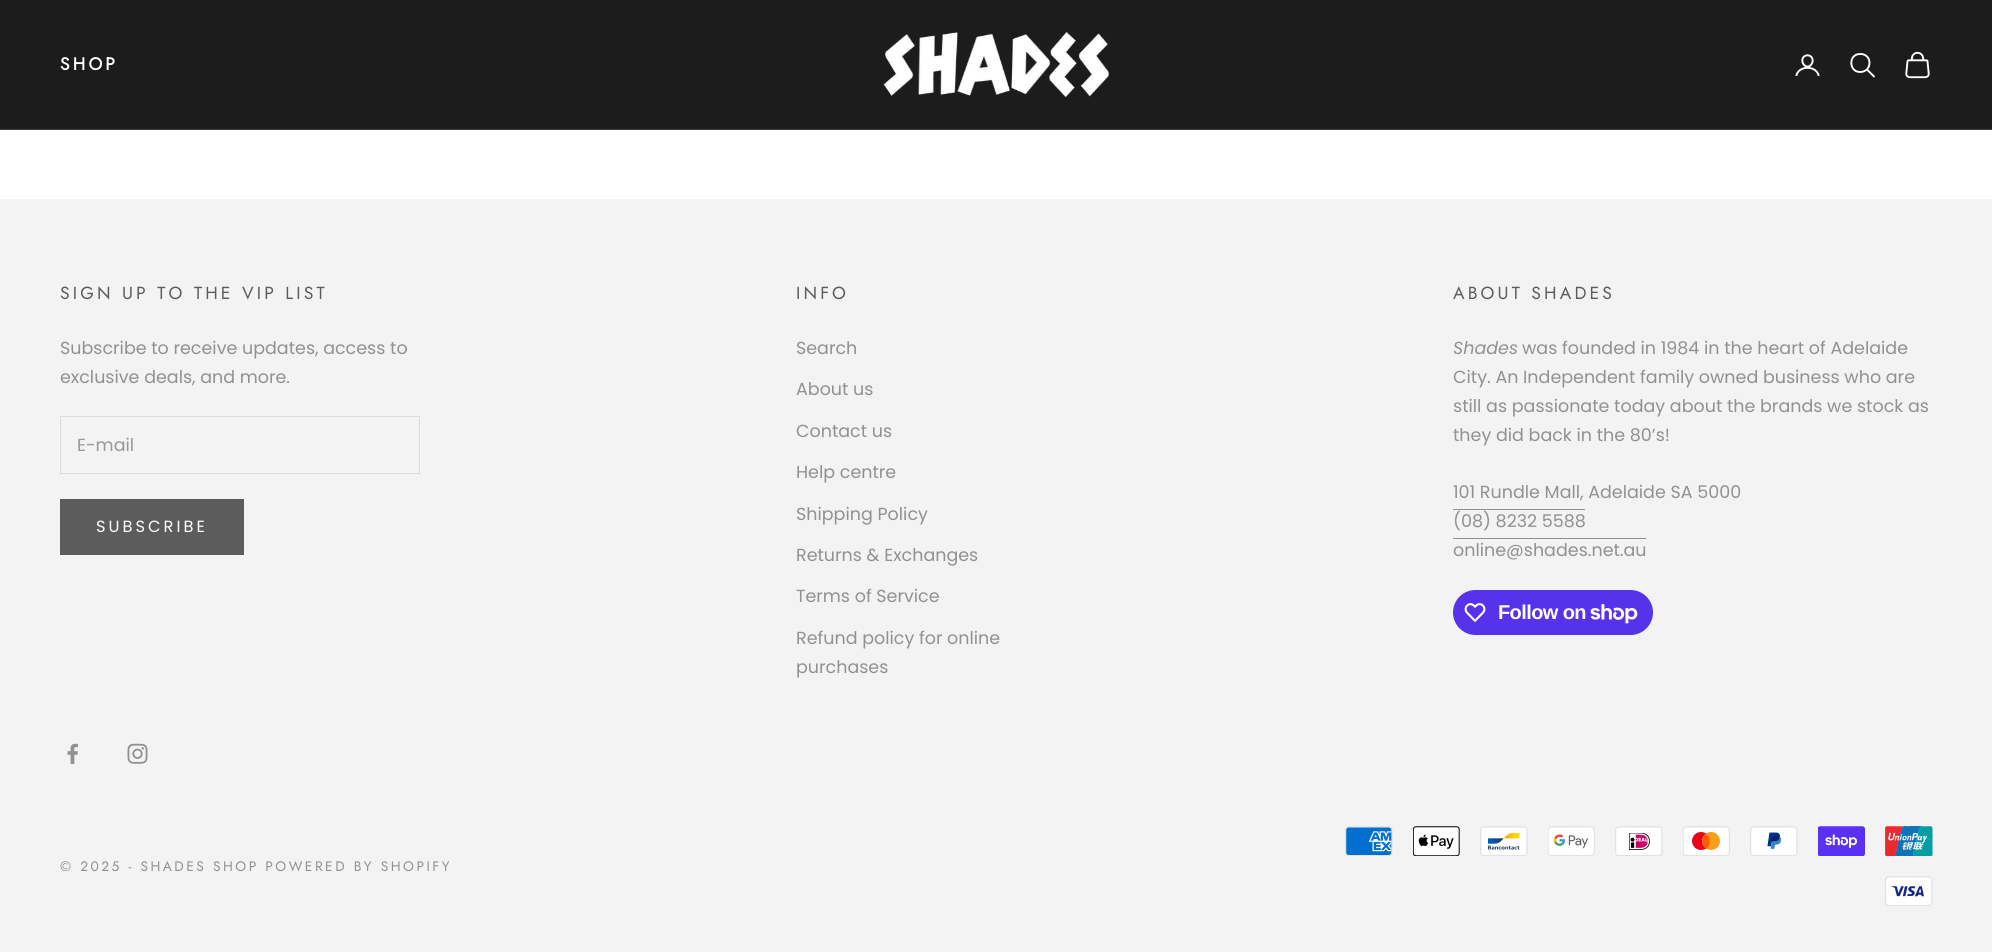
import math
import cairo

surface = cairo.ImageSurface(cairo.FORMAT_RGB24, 1992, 952)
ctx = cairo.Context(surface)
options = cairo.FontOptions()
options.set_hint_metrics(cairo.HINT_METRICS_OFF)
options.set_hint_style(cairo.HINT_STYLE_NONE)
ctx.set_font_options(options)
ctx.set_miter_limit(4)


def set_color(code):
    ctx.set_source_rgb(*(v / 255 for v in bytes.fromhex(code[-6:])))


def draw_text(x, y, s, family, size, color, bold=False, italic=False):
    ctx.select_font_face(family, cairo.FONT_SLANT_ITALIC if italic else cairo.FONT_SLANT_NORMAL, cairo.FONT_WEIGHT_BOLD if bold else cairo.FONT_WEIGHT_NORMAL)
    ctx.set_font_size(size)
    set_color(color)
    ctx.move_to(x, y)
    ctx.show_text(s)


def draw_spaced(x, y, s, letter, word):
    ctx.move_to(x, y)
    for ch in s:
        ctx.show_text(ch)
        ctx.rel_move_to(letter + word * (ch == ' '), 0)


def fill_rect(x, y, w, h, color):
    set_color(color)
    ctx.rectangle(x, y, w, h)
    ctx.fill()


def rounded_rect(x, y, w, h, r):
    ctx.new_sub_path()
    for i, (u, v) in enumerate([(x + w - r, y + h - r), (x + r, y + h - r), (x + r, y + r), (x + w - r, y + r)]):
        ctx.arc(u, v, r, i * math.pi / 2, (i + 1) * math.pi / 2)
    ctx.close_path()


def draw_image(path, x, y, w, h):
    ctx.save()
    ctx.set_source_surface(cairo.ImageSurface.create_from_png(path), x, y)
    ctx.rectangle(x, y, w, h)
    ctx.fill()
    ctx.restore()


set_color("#ffffff")
ctx.paint()
fill_rect(0, 0, 1992, 129, "#1c1c1c")
fill_rect(0, 129, 1992, 1, "#3e3e3e")
ctx.select_font_face("Jost", cairo.FONT_SLANT_NORMAL, cairo.FONT_WEIGHT_BOLD)
ctx.set_font_size(17.5)
set_color("#ffffff")
draw_spaced(60, 70, "SHOP", 3.15, 0)
draw_image("assets/img1.png", 883, 32, 226, 65)
draw_image("assets/img2.png", 1795, 54, 25, 22)
ctx.new_path()
ctx.move_to(1860.5, 54)
ctx.curve_to(1848, 53.5, 1848.5, 72.5, 1860.5, 72)
ctx.curve_to(1872.5, 71.5, 1872.5, 54, 1860.5, 54)
ctx.close_path()
ctx.set_line_width(1.9)
ctx.stroke()
ctx.new_path()
ctx.move_to(1867.5, 70)
ctx.line_to(1874, 76.5)
ctx.set_line_cap(cairo.LINE_CAP_ROUND)
ctx.stroke()
draw_image("assets/img3.png", 1905, 51, 25, 28)
fill_rect(0, 199, 1992, 753, "#f3f3f3")
ctx.select_font_face("Jost")
set_color("#5c5c5c")
draw_spaced(60, 299, "SIGN UP TO THE VIP LIST", 3.15, 0)
draw_text(60, 354, "Subscribe to receive updates, access to", "Poppins", 17.5, "#919191")
draw_text(60, 383, "exclusive deals, and more.", "Poppins", 17.5, "#919191")
ctx.rectangle(60.5, 416.5, 359, 57)
set_color("#dcdcdc")
ctx.set_line_width(1)
ctx.set_line_cap(cairo.LINE_CAP_BUTT)
ctx.stroke()
draw_text(77, 451, "E-mail", "Poppins", 17.5, "#989898")
set_color("#5c5c5c")
ctx.rectangle(60.5, 499.5, 183, 55)
ctx.fill_preserve()
ctx.stroke()
ctx.set_font_size(16.25)
set_color("#ffffff")
draw_spaced(96, 532, "SUBSCRIBE", 3, 0)
ctx.select_font_face("Jost")
ctx.set_font_size(17.5)
set_color("#5c5c5c")
draw_spaced(796, 299, "INFO", 3.15, 0)
draw_text(796, 354, "Search", "Poppins", 17.5, "#919191")
draw_text(796, 395, "About us", "Poppins", 17.5, "#919191")
draw_text(796, 437, "Contact us", "Poppins", 17.5, "#919191")
draw_text(796, 478, "Help centre", "Poppins", 17.5, "#919191")
draw_text(796, 520, "Shipping Policy", "Poppins", 17.5, "#919191")
draw_text(796, 561, "Returns & Exchanges", "Poppins", 17.5, "#919191")
draw_text(796, 602, "Terms of Service", "Poppins", 17.5, "#919191")
draw_text(796, 644, "Refund policy for online", "Poppins", 17.5, "#919191")
draw_text(796, 673, "purchases", "Poppins", 17.5, "#919191")
ctx.select_font_face("Jost")
set_color("#5c5c5c")
draw_spaced(1453, 299, "ABOUT SHADES", 3.15, 0)
draw_text(1453, 354, "Shades", "Poppins", 17.5, "#919191", italic=True)
draw_text(1522, 354, "was founded in 1984 in the heart of Adelaide", "Poppins", 17.5, "#919191")
draw_text(1453, 383, "City. An Independent family owned business who are", "Poppins", 17.5, "#919191")
draw_text(1453, 412, "still as passionate today about the brands we stock as", "Poppins", 17.5, "#919191")
draw_text(1453, 441, "they did back in the 80’s!", "Poppins", 17.5, "#919191")
draw_text(1453, 498, "101 Rundle Mall, Adelaide SA 5000", "Poppins", 17.5, "#919191")
draw_text(1453, 527, "(08) 8232 5588", "Poppins", 17.5, "#919191")
fill_rect(1453, 509, 132, 1, "#919191")
draw_text(1453, 556, "online@shades.net.au", "Poppins", 17.5, "#919191")
fill_rect(1453, 538, 193, 1, "#919191")
set_color("#5433eb")
rounded_rect(1453, 590, 200, 45, 22.5)
ctx.fill()
draw_image("assets/img4.png", 1464, 603, 22, 19)
ctx.select_font_face("Liberation Sans", cairo.FONT_SLANT_NORMAL, cairo.FONT_WEIGHT_BOLD)
ctx.set_font_size(20)
set_color("#ffffff")
draw_spaced(1498, 619, "Follow on", -0.6, 0)
draw_image("assets/img5.png", 1590, 604, 48, 20)
draw_image("assets/img6.png", 67, 743, 11, 21)
draw_image("assets/img7.png", 127, 743, 21, 21)
ctx.select_font_face("Jost")
ctx.set_font_size(13.75)
set_color("#919191")
draw_spaced(60, 871, "© 2025 - SHADES SHOP POWERED BY SHOPIFY", 2.5, 0)
draw_image("assets/img8.png", 1345, 826, 48, 30)
draw_image("assets/img9.png", 1413, 826, 47, 30)
draw_image("assets/img10.png", 1480, 826, 48, 30)
draw_image("assets/img11.png", 1548, 826, 47, 30)
draw_image("assets/img12.png", 1615, 826, 48, 30)
draw_image("assets/img13.png", 1683, 826, 47, 30)
draw_image("assets/img14.png", 1750, 826, 48, 30)
draw_image("assets/img15.png", 1818, 826, 47, 30)
draw_image("assets/img16.png", 1885, 826, 48, 30)
draw_image("assets/img17.png", 1885, 876, 48, 30)
surface.write_to_png("output.png")
